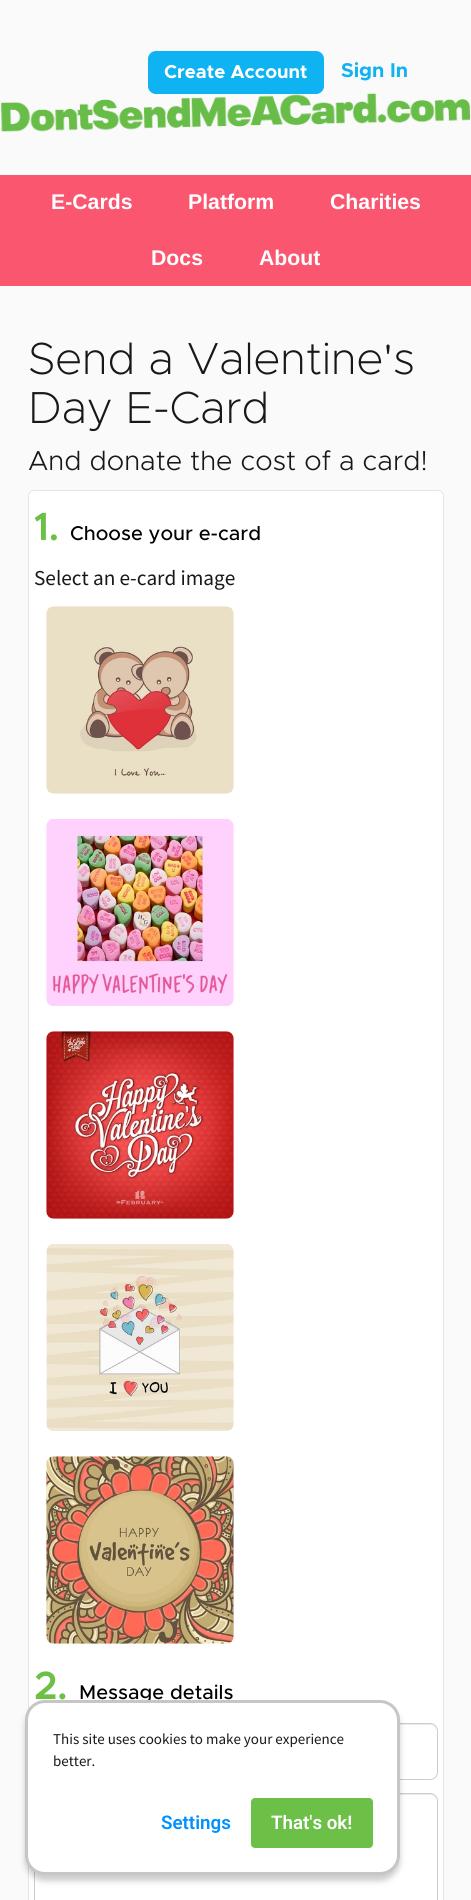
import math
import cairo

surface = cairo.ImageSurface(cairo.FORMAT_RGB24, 471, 1900)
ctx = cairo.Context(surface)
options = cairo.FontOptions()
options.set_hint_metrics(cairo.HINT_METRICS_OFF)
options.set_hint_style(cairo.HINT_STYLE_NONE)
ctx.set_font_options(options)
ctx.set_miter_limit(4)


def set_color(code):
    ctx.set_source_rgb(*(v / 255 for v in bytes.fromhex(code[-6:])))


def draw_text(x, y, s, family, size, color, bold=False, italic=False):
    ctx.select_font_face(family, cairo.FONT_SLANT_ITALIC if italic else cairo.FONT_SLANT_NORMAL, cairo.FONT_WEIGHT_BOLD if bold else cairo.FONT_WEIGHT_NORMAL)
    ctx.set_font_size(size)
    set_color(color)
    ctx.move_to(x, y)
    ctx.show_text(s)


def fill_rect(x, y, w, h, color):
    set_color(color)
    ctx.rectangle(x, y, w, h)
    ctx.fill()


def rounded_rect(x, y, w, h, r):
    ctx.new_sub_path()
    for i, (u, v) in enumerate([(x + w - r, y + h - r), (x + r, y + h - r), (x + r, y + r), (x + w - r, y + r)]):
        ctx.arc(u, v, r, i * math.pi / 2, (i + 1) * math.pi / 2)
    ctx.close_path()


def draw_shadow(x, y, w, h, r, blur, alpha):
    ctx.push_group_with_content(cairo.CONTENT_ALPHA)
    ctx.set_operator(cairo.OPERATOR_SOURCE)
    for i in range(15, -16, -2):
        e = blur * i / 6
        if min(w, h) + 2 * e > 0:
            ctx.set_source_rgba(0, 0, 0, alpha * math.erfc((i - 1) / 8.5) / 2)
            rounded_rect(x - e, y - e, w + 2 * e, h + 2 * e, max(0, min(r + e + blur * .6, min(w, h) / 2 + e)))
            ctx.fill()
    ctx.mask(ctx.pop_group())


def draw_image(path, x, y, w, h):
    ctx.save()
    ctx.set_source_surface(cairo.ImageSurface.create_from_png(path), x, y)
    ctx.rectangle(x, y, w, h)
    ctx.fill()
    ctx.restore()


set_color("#fafafa")
ctx.paint()
set_color("#0fb3f2")
rounded_rect(148.5, 51.5, 175, 42, 7.5)
ctx.fill_preserve()
ctx.set_line_width(1)
ctx.stroke()
draw_text(164, 78, "Create Account", "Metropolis", 18.75, "#ffffff", bold=True)
draw_text(341, 77, "Sign In", "Metropolis", 20, "#0fb3f2", bold=True)
draw_image("assets/img1.png", 1, 93, 469, 39)
fill_rect(0, 175, 471, 111, "#fa5670")
draw_text(51, 209, "E-Cards", "Liberation Sans", 21.25, "#ffffff", bold=True)
draw_text(188, 209, "Platform", "Liberation Sans", 21.25, "#ffffff", bold=True)
draw_text(330, 209, "Charities", "Liberation Sans", 21.25, "#ffffff", bold=True)
draw_text(151, 265, "Docs", "Liberation Sans", 21.25, "#ffffff", bold=True)
draw_text(259, 265, "About", "Liberation Sans", 21.25, "#ffffff", bold=True)
draw_text(28, 374, "Send a Valentine's", "Metropolis ExtraLight", 45, "#181818")
draw_text(28, 423, "Day E-Card", "Metropolis ExtraLight", 45, "#181818")
draw_text(28, 470, "And donate the cost of a card!", "Metropolis Light", 27.5, "#181818")
set_color("#ffffff")
rounded_rect(28.5, 490.5, 415, 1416, 5.5)
ctx.fill_preserve()
set_color("#e5e5e5")
ctx.stroke()
draw_text(34, 540, "1.", "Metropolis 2", 38, "#6cc047", bold=True)
draw_text(70, 540, "Choose your e-card", "Metropolis Medium", 20, "#000000")
draw_text(34, 585, "Select an e-card image", "Source Sans Pro", 21.25, "#181818")
draw_image("assets/img2.png", 46, 606, 188, 188)
draw_image("assets/img3.png", 46, 819, 188, 187)
draw_image("assets/img4.png", 46, 1031, 188, 188)
draw_image("assets/img5.png", 46, 1244, 188, 187)
draw_image("assets/img6.png", 46, 1456, 188, 188)
draw_text(34, 1699, "2.", "Metropolis 2", 38, "#6cc047", bold=True)
draw_text(79, 1699, "Message details", "Metropolis Medium", 20, "#000000")
set_color("#ececec")
ctx.new_path()
ctx.move_to(41, 1725)
ctx.line_to(430, 1725)
ctx.curve_to(433, 1725, 436, 1728, 436, 1731)
ctx.line_to(436, 1730)
ctx.curve_to(436, 1727, 433, 1724, 430, 1724)
ctx.line_to(41, 1724)
ctx.curve_to(38, 1724, 35, 1727, 35, 1730)
ctx.line_to(35, 1731)
ctx.curve_to(35, 1728, 38, 1725, 41, 1725)
ctx.close_path()
ctx.fill()
rounded_rect(34.5, 1723.5, 403, 56, 7.5)
set_color("#cccccc")
ctx.stroke()
set_color("#ececec")
ctx.new_path()
ctx.move_to(41, 1795)
ctx.line_to(430, 1795)
ctx.curve_to(433, 1795, 436, 1798, 436, 1801)
ctx.line_to(436, 1800)
ctx.curve_to(436, 1797, 433, 1794, 430, 1794)
ctx.line_to(41, 1794)
ctx.curve_to(38, 1794, 35, 1797, 35, 1800)
ctx.line_to(35, 1801)
ctx.curve_to(35, 1798, 38, 1795, 41, 1795)
ctx.close_path()
ctx.fill()
rounded_rect(34.5, 1793.5, 403, 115, 7.5)
set_color("#cccccc")
ctx.stroke()
set_color("#000000")
draw_shadow(25, 1706, 375, 175, 20, 3, 0.2)
set_color("#ffffff")
rounded_rect(26.5, 1701.5, 372, 172, 18.5)
ctx.fill_preserve()
set_color("#c6c6c6")
ctx.set_line_width(3)
ctx.stroke()
draw_text(53, 1744, "This site uses cookies to make your experience", "Source Sans Pro", 15, "#181818")
draw_text(53, 1766, "better.", "Source Sans Pro", 15, "#181818")
draw_text(161, 1829, "Settings", "Roboto SemiBold", 18.75, "#0091ff")
set_color("#6cc047")
rounded_rect(251, 1798, 122, 50, 4)
ctx.fill()
draw_text(271, 1829, "That's ok!", "Roboto SemiBold", 18.75, "#ffffff")
surface.write_to_png("output.png")
